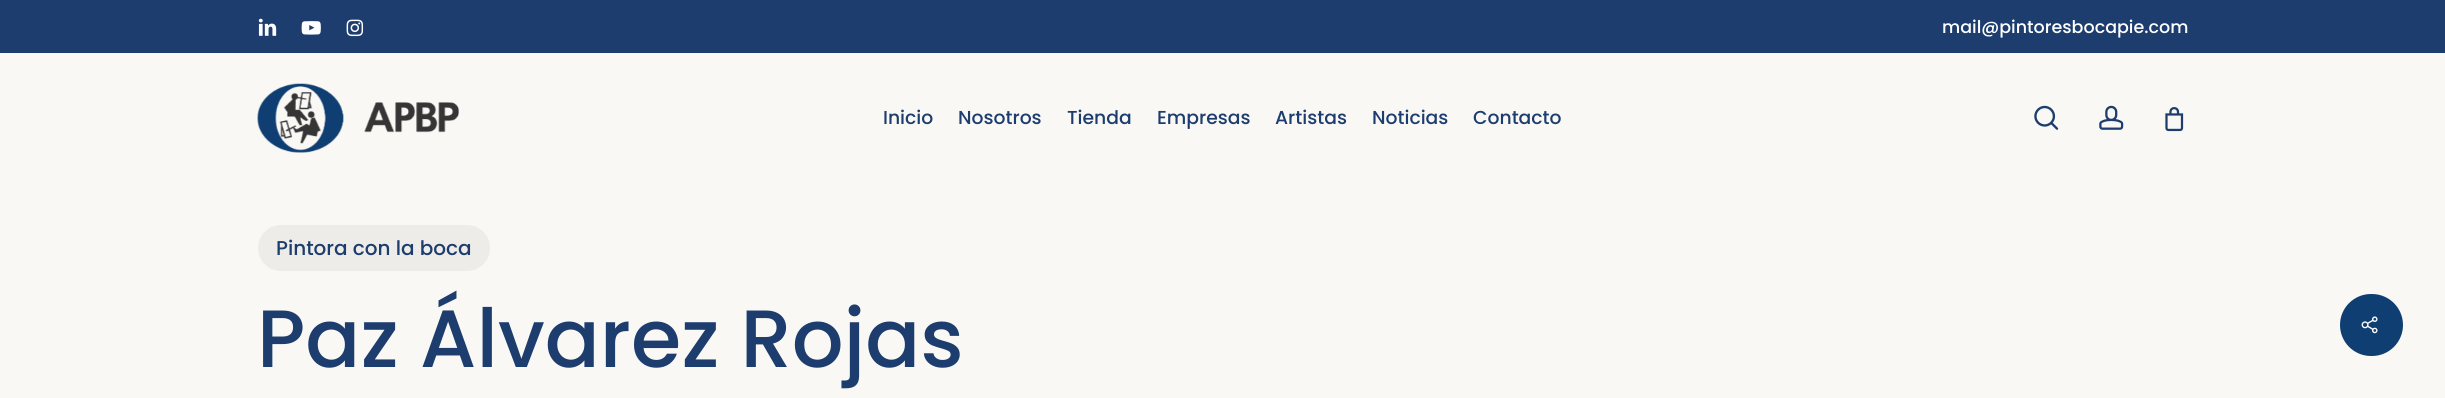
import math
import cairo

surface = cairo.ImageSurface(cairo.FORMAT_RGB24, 2445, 398)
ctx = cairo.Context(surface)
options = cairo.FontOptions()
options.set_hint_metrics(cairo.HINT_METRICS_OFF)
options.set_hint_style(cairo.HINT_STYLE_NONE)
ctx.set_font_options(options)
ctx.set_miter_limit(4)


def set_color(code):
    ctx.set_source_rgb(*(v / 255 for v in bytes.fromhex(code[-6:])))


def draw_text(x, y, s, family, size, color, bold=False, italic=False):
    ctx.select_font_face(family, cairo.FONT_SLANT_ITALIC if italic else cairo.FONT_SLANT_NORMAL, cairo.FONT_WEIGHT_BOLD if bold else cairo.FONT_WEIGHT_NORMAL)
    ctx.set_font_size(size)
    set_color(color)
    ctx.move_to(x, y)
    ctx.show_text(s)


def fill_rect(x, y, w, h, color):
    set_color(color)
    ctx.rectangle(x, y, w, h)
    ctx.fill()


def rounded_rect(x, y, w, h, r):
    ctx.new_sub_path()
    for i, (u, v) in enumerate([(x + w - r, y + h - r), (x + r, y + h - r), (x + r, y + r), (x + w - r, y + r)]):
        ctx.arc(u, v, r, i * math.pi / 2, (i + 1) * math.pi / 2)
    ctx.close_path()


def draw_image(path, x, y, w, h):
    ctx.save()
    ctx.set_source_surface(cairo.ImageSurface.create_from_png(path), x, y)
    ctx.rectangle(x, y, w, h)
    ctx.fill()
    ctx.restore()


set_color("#faf8f4")
ctx.paint()
fill_rect(0, 0, 2445, 53, "#1c3d6e")
draw_image("assets/img1.png", 258, 18, 19, 18)
draw_image("assets/img2.png", 301, 21, 20, 14)
draw_image("assets/img3.png", 346, 19, 18, 18)
draw_text(1942, 33, "mail@pintoresbocapie.com", "Poppins Medium", 17.5, "#ffffff")
draw_image("assets/img4.png", 257, 83, 202, 70)
draw_text(883, 124, "Inicio", "Poppins Medium", 18.75, "#1c3d6e")
draw_text(958, 124, "Nosotros", "Poppins Medium", 18.75, "#1c3d6e")
draw_text(1067, 124, "Tienda", "Poppins Medium", 18.75, "#1c3d6e")
draw_text(1157, 124, "Empresas", "Poppins Medium", 18.75, "#1c3d6e")
draw_text(1275, 124, "Artistas", "Poppins Medium", 18.75, "#1c3d6e")
draw_text(1372, 124, "Noticias", "Poppins Medium", 18.75, "#1c3d6e")
draw_text(1473, 124, "Contacto", "Poppins Medium", 18.75, "#1c3d6e")
draw_image("assets/img5.png", 2034, 105, 25, 25)
draw_image("assets/img6.png", 2099, 105, 25, 25)
draw_image("assets/img7.png", 2165, 107, 19, 25)
set_color("#eeece8")
rounded_rect(258, 225, 232, 46, 23)
ctx.fill()
draw_text(276, 255, "Pintora con la boca", "Poppins Medium", 20, "#1c3d6e")
draw_text(257, 367, "Paz Álvarez Rojas", "Poppins Medium", 81.25, "#1c3d6e")
set_color("#0e3e72")
rounded_rect(2340, 294, 63, 62, 31)
ctx.fill()
draw_image("assets/img8.png", 2361, 316, 17, 18)
surface.write_to_png("output.png")
